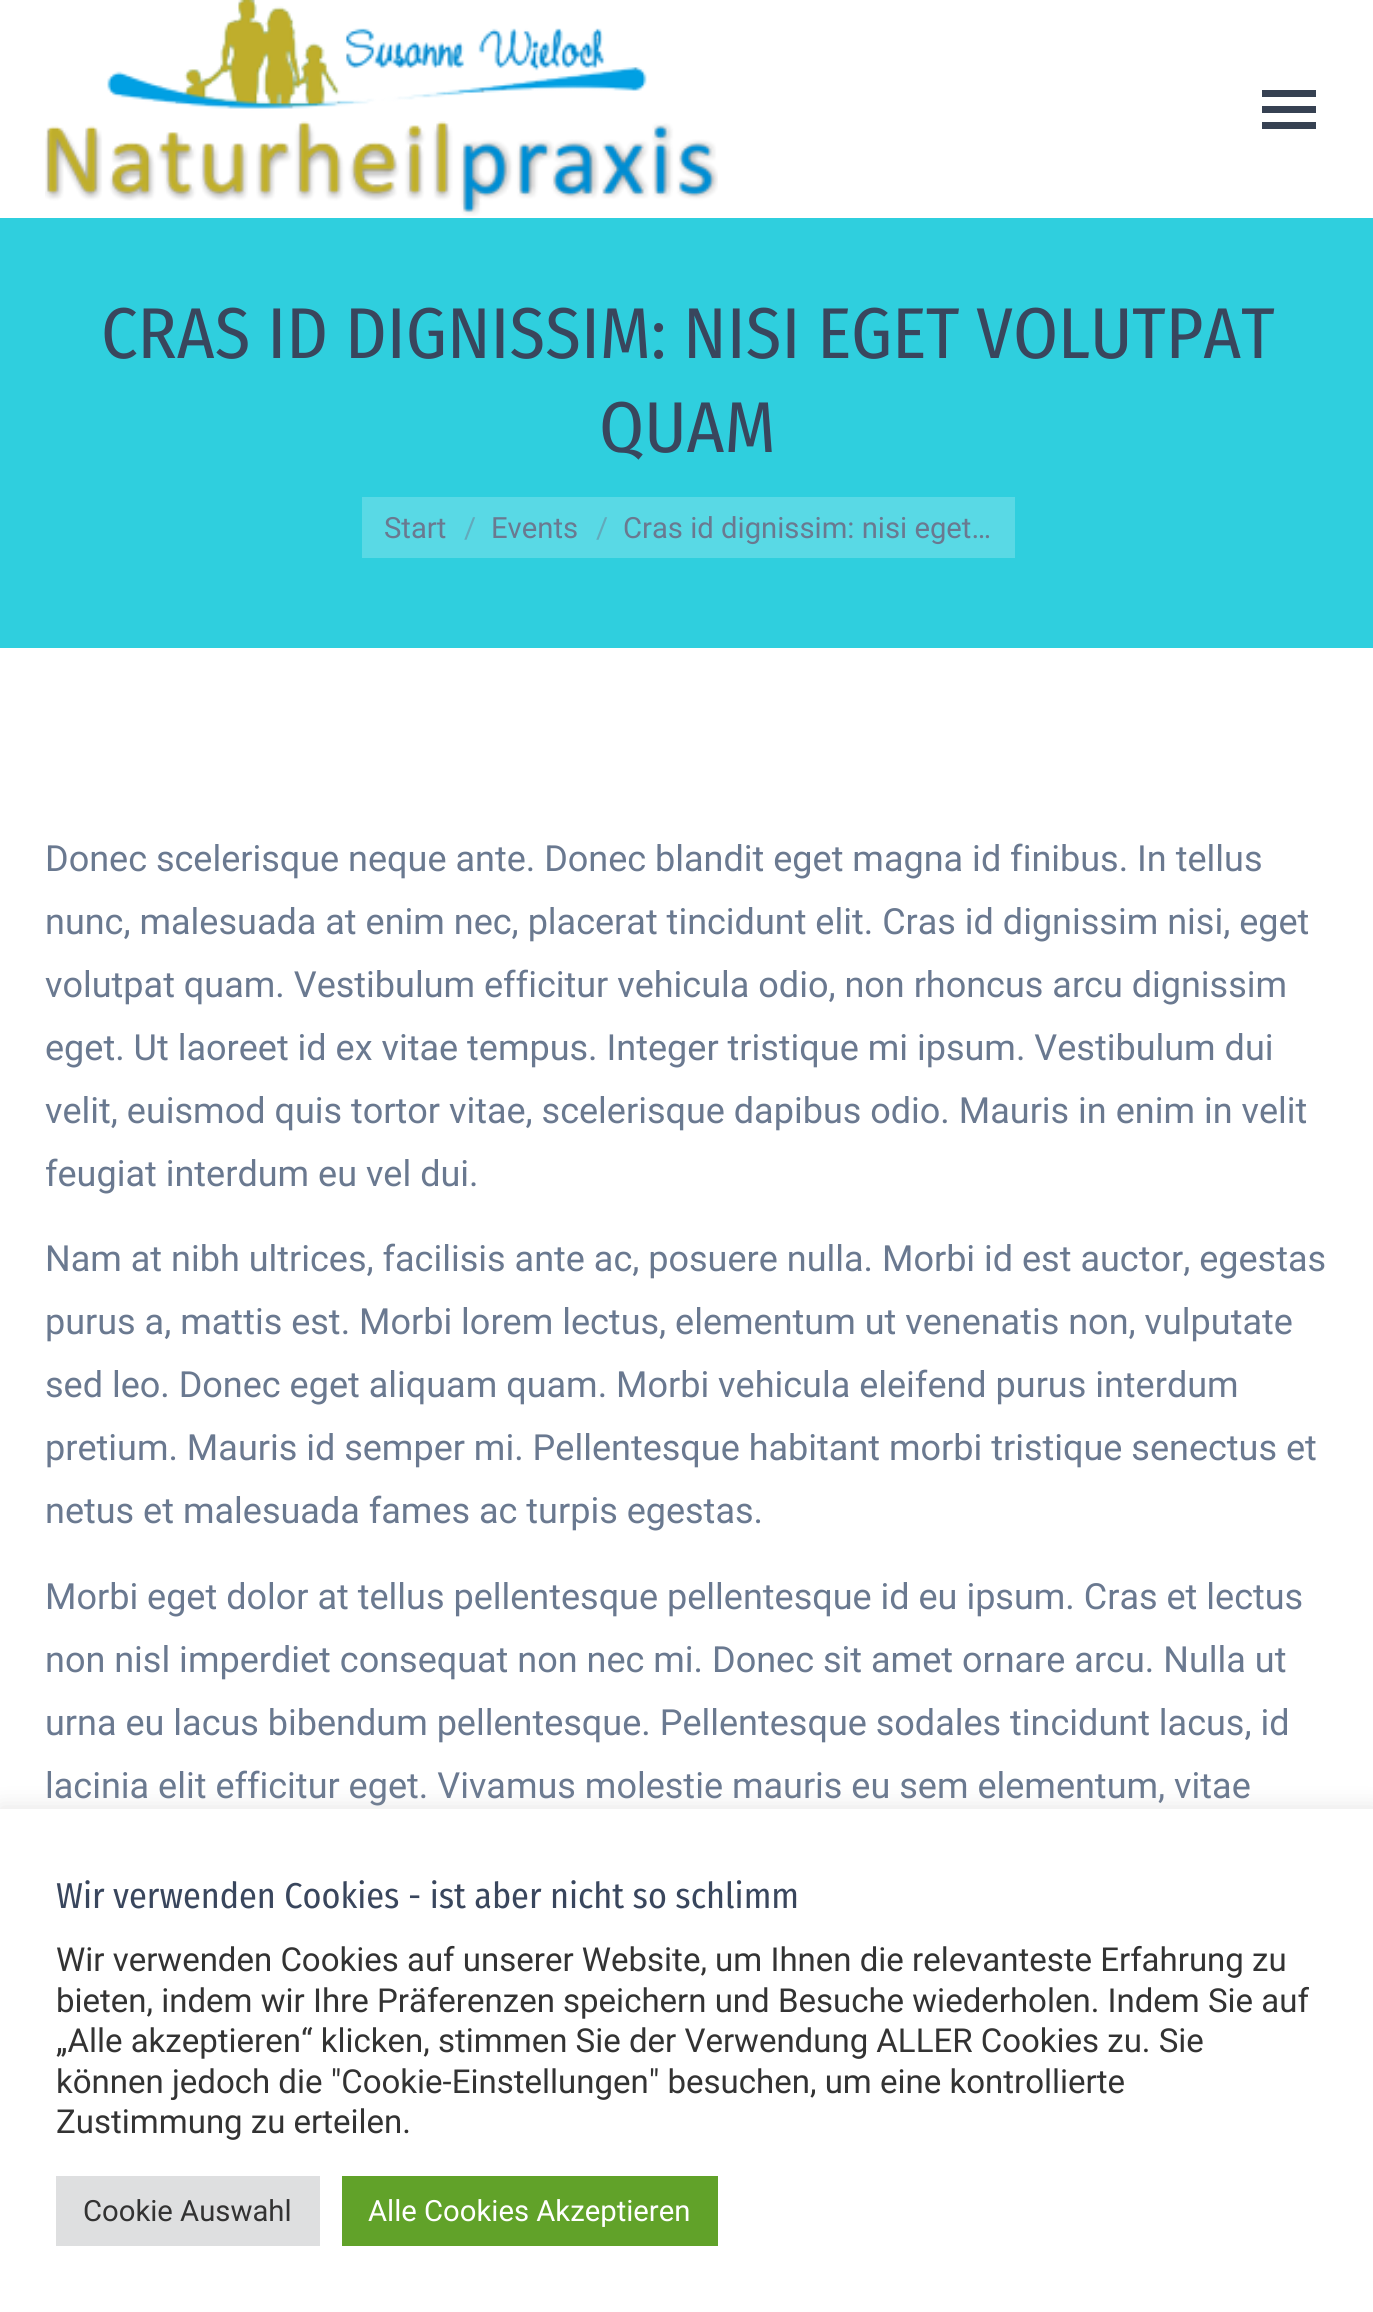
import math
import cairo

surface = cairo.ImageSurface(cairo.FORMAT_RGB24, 1373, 2312)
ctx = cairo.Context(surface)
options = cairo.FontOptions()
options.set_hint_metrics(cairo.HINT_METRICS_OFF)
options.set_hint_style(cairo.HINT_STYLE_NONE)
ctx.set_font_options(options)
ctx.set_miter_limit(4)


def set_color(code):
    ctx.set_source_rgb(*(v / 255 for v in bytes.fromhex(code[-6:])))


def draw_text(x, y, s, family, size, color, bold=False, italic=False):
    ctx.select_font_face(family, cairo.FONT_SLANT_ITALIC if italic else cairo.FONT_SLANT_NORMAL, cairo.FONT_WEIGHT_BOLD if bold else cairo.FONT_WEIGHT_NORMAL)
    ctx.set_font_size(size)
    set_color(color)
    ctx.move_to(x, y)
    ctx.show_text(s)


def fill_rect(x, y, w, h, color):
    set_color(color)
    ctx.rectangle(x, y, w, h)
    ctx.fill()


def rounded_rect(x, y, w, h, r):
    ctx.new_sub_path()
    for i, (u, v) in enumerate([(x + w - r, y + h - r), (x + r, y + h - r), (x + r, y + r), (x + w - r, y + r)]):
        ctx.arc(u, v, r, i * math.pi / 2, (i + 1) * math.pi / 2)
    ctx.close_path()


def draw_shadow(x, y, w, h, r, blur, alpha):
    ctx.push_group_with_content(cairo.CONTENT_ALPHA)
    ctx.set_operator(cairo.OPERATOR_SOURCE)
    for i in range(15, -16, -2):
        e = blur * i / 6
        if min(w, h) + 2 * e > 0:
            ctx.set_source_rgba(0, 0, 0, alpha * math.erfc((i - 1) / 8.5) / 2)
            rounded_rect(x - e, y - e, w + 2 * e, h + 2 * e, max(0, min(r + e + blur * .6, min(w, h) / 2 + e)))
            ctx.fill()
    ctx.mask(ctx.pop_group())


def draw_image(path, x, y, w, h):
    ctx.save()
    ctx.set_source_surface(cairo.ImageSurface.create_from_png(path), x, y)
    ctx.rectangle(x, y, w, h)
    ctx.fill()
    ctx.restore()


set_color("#ffffff")
ctx.paint()
draw_image("assets/img1.png", 45, 0, 673, 216)
fill_rect(1262, 90, 54, 7, "#364152")
fill_rect(1262, 106, 54, 7, "#364152")
fill_rect(1262, 122, 54, 7, "#364152")
fill_rect(0, 218, 1373, 430, "#2fcfde")
draw_text(101, 358, "CRAS ID DIGNISSIM: NISI EGET VOLUTPAT", "Fira Sans Condensed", 72, "#39465d")
draw_text(599, 452, "QUAM", "Fira Sans Condensed", 72, "#39465d")
fill_rect(362, 497, 653, 61, "#59d9e5")
draw_text(384, 538, "Start", "Roboto", 29.25, "#6a7990")
draw_text(464, 538, "/", "Roboto", 29.25, "#62a9bb")
draw_text(491, 538, "Events", "Roboto", 29.25, "#6a7990")
draw_text(596, 538, "/", "Roboto", 29.25, "#62a9bb")
draw_text(623, 538, "Cras id dignissim: nisi eget…", "Roboto", 29.25, "#6a7990")
draw_text(45, 871, "Donec scelerisque neque ante. Donec blandit eget magna id finibus. In tellus", "Roboto", 36, "#6a7990")
draw_text(45, 934, "nunc, malesuada at enim nec, placerat tincidunt elit. Cras id dignissim nisi, eget", "Roboto", 36, "#6a7990")
draw_text(45, 997, "volutpat quam. Vestibulum efficitur vehicula odio, non rhoncus arcu dignissim", "Roboto", 36, "#6a7990")
draw_text(45, 1060, "eget. Ut laoreet id ex vitae tempus. Integer tristique mi ipsum. Vestibulum dui", "Roboto", 36, "#6a7990")
draw_text(45, 1123, "velit, euismod quis tortor vitae, scelerisque dapibus odio. Mauris in enim in velit", "Roboto", 36, "#6a7990")
draw_text(45, 1186, "feugiat interdum eu vel dui.", "Roboto", 36, "#6a7990")
draw_text(45, 1271, "Nam at nibh ultrices, facilisis ante ac, posuere nulla. Morbi id est auctor, egestas", "Roboto", 36, "#6a7990")
draw_text(45, 1334, "purus a, mattis est. Morbi lorem lectus, elementum ut venenatis non, vulputate", "Roboto", 36, "#6a7990")
draw_text(45, 1397, "sed leo. Donec eget aliquam quam. Morbi vehicula eleifend purus interdum", "Roboto", 36, "#6a7990")
draw_text(45, 1460, "pretium. Mauris id semper mi. Pellentesque habitant morbi tristique senectus et", "Roboto", 36, "#6a7990")
draw_text(45, 1523, "netus et malesuada fames ac turpis egestas.", "Roboto", 36, "#6a7990")
draw_text(45, 1609, "Morbi eget dolor at tellus pellentesque pellentesque id eu ipsum. Cras et lectus", "Roboto", 36, "#6a7990")
draw_text(45, 1672, "non nisl imperdiet consequat non nec mi. Donec sit amet ornare arcu. Nulla ut", "Roboto", 36, "#6a7990")
draw_text(45, 1735, "urna eu lacus bibendum pellentesque. Pellentesque sodales tincidunt lacus, id", "Roboto", 36, "#6a7990")
draw_text(45, 1798, "lacinia elit efficitur eget. Vivamus molestie mauris eu sem elementum, vitae", "Roboto", 36, "#6a7990")
set_color("#acabab")
draw_shadow(0, 1807, 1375, 504, 0, 11, 0.3)
fill_rect(0, 1809, 1373, 503, "#ffffff")
draw_text(56, 1908, "Wir verwenden Cookies - ist aber nicht so schlimm", "Fira Sans Condensed", 36, "#39465d")
draw_text(56, 1971, "Wir verwenden Cookies auf unserer Website, um Ihnen die relevanteste Erfahrung zu", "Roboto", 33, "#333333")
draw_text(56, 2012, "bieten, indem wir Ihre Präferenzen speichern und Besuche wiederholen. Indem Sie auf", "Roboto", 33, "#333333")
draw_text(56, 2052, "„Alle akzeptieren“ klicken, stimmen Sie der Verwendung ALLER Cookies zu. Sie", "Roboto", 33, "#333333")
draw_text(56, 2093, "können jedoch die \"Cookie-Einstellungen\" besuchen, um eine kontrollierte", "Roboto", 33, "#333333")
draw_text(56, 2133, "Zustimmung zu erteilen.", "Roboto", 33, "#333333")
fill_rect(56, 2176, 264, 70, "#dedfe0")
draw_text(83, 2221, "Cookie Auswahl", "Roboto", 29.25, "#333333")
fill_rect(342, 2176, 376, 70, "#61a229")
draw_text(368, 2221, "Alle Cookies Akzeptieren", "Roboto", 29.25, "#ffffff")
surface.write_to_png("output.png")
